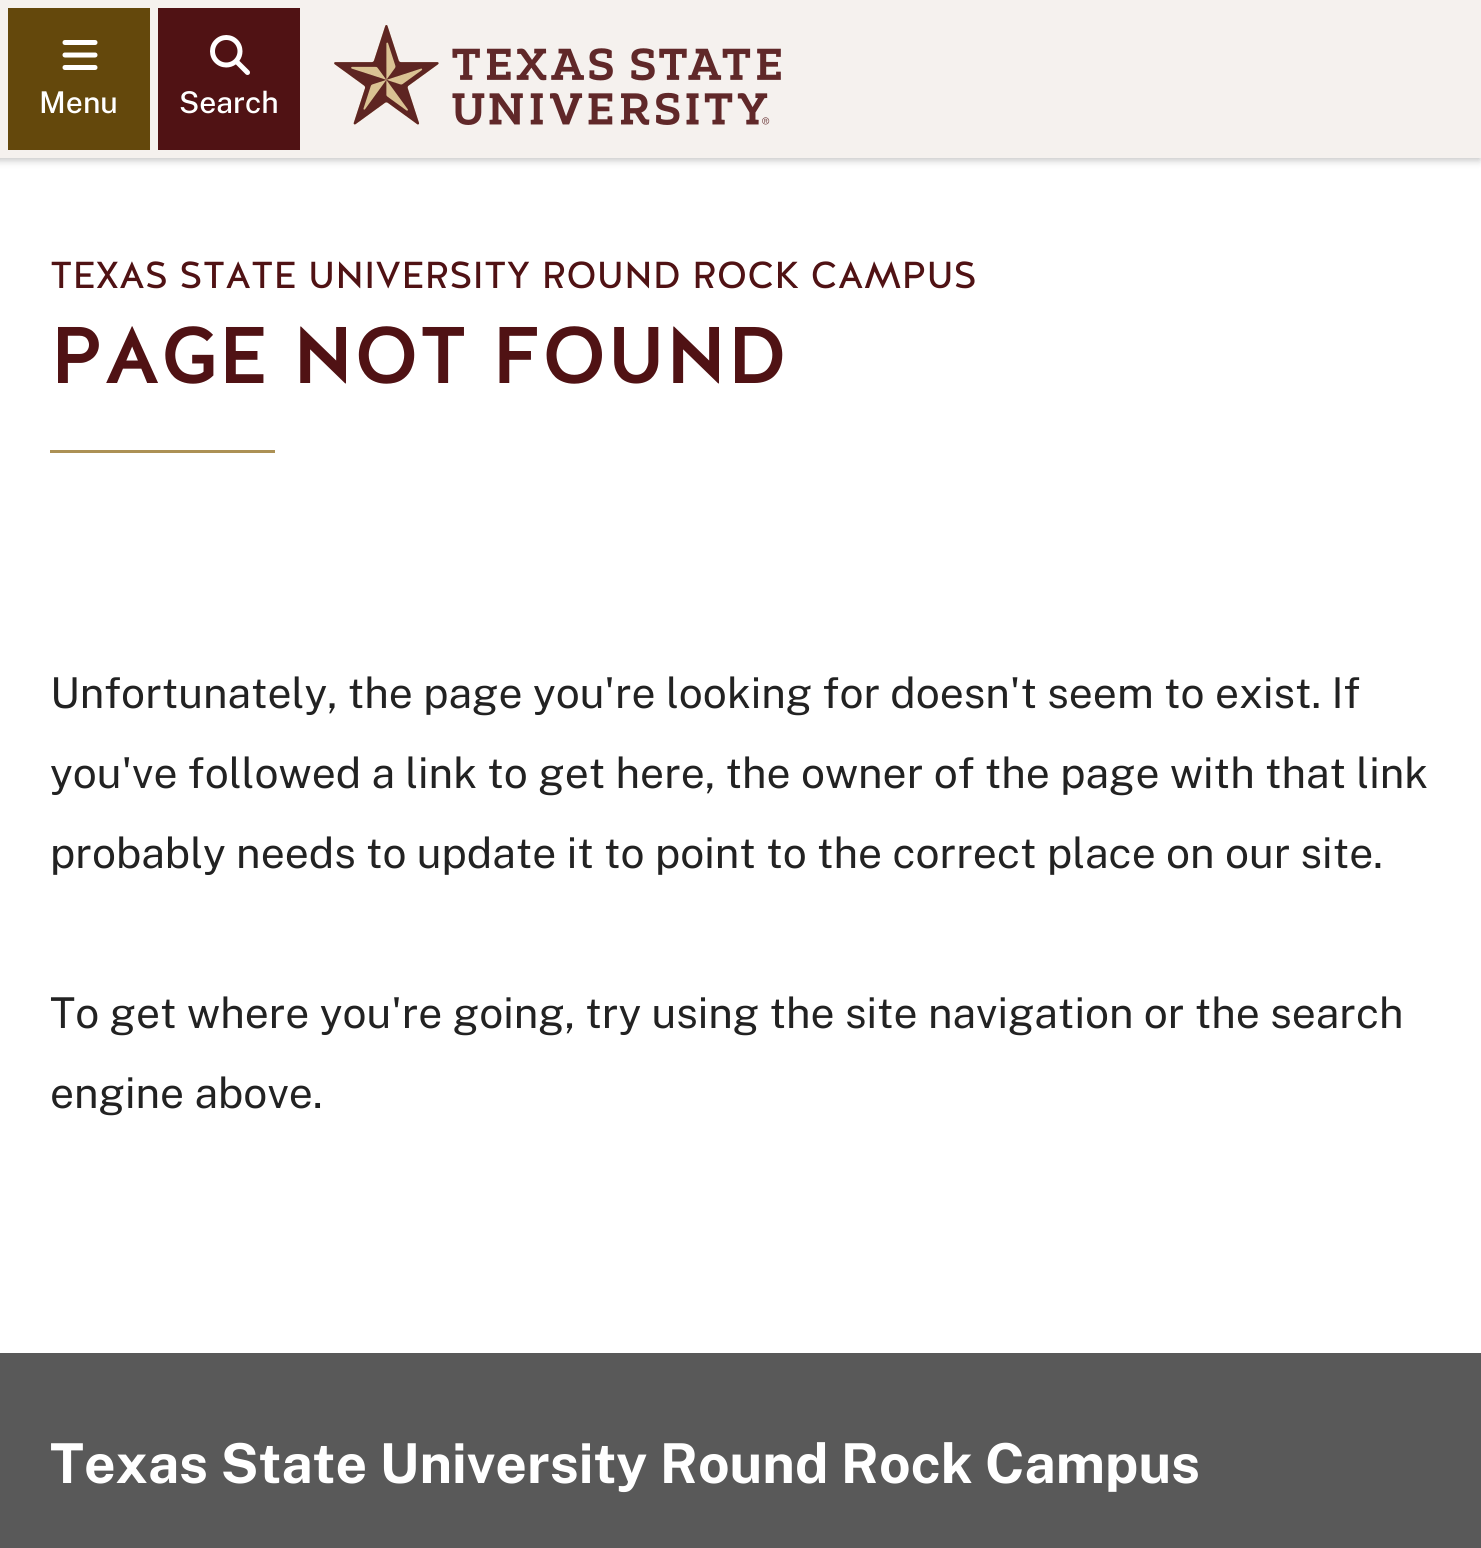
import math
import cairo

surface = cairo.ImageSurface(cairo.FORMAT_RGB24, 1481, 1548)
ctx = cairo.Context(surface)
options = cairo.FontOptions()
options.set_hint_metrics(cairo.HINT_METRICS_OFF)
options.set_hint_style(cairo.HINT_STYLE_NONE)
ctx.set_font_options(options)
ctx.set_miter_limit(4)


def set_color(code):
    ctx.set_source_rgb(*(v / 255 for v in bytes.fromhex(code[-6:])))


def draw_text(x, y, s, family, size, color, bold=False, italic=False):
    ctx.select_font_face(family, cairo.FONT_SLANT_ITALIC if italic else cairo.FONT_SLANT_NORMAL, cairo.FONT_WEIGHT_BOLD if bold else cairo.FONT_WEIGHT_NORMAL)
    ctx.set_font_size(size)
    set_color(color)
    ctx.move_to(x, y)
    ctx.show_text(s)


def fill_rect(x, y, w, h, color):
    set_color(color)
    ctx.rectangle(x, y, w, h)
    ctx.fill()


def rounded_rect(x, y, w, h, r):
    ctx.new_sub_path()
    for i, (u, v) in enumerate([(x + w - r, y + h - r), (x + r, y + h - r), (x + r, y + r), (x + w - r, y + r)]):
        ctx.arc(u, v, r, i * math.pi / 2, (i + 1) * math.pi / 2)
    ctx.close_path()


def draw_shadow(x, y, w, h, r, blur, alpha):
    ctx.push_group_with_content(cairo.CONTENT_ALPHA)
    ctx.set_operator(cairo.OPERATOR_SOURCE)
    for i in range(15, -16, -2):
        e = blur * i / 6
        if min(w, h) + 2 * e > 0:
            ctx.set_source_rgba(0, 0, 0, alpha * math.erfc((i - 1) / 8.5) / 2)
            rounded_rect(x - e, y - e, w + 2 * e, h + 2 * e, max(0, min(r + e + blur * .6, min(w, h) / 2 + e)))
            ctx.fill()
    ctx.mask(ctx.pop_group())


def draw_image(path, x, y, w, h):
    ctx.save()
    ctx.set_source_surface(cairo.ImageSurface.create_from_png(path), x, y)
    ctx.rectangle(x, y, w, h)
    ctx.fill()
    ctx.restore()


set_color("#ffffff")
ctx.paint()
set_color("#000000")
draw_shadow(-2, 3, 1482, 157, 0, 4, 0.25)
fill_rect(0, 0, 1481, 158, "#f5f1ee")
fill_rect(8, 8, 142, 142, "#64480c")
draw_image("assets/img1.png", 62, 40, 36, 30)
draw_text(39, 113, "Menu", "Public Sans Medium", 30, "#ffffff")
fill_rect(158, 8, 142, 142, "#501214")
draw_image("assets/img2.png", 210, 35, 40, 40)
draw_text(179, 113, "Search", "Public Sans Medium", 30, "#ffffff")
draw_image("assets/img3.png", 334, 25, 447, 100)
draw_text(50, 288, "TEXAS STATE UNIVERSITY ROUND ROCK CAMPUS", "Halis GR", 37.5, "#501214")
draw_text(50, 383, "PAGE NOT FOUND", "Halis GR Medium", 80, "#501214")
fill_rect(50, 450, 225, 3, "#ac9155")
draw_text(50, 708, "Unfortunately, the page you're looking for doesn't seem to exist. If", "Public Sans", 42.5, "#222222")
draw_text(50, 788, "you've followed a link to get here, the owner of the page with that link", "Public Sans", 42.5, "#222222")
draw_text(50, 868, "probably needs to update it to point to the correct place on our site.", "Public Sans", 42.5, "#222222")
draw_text(50, 1028, "To get where you're going, try using the site navigation or the search", "Public Sans", 42.5, "#222222")
draw_text(50, 1108, "engine above.", "Public Sans", 42.5, "#222222")
fill_rect(0, 1353, 1481, 195, "#595959")
draw_text(50, 1483, "Texas State University Round Rock Campus", "Public Sans", 55, "#ffffff", bold=True)
surface.write_to_png("output.png")
